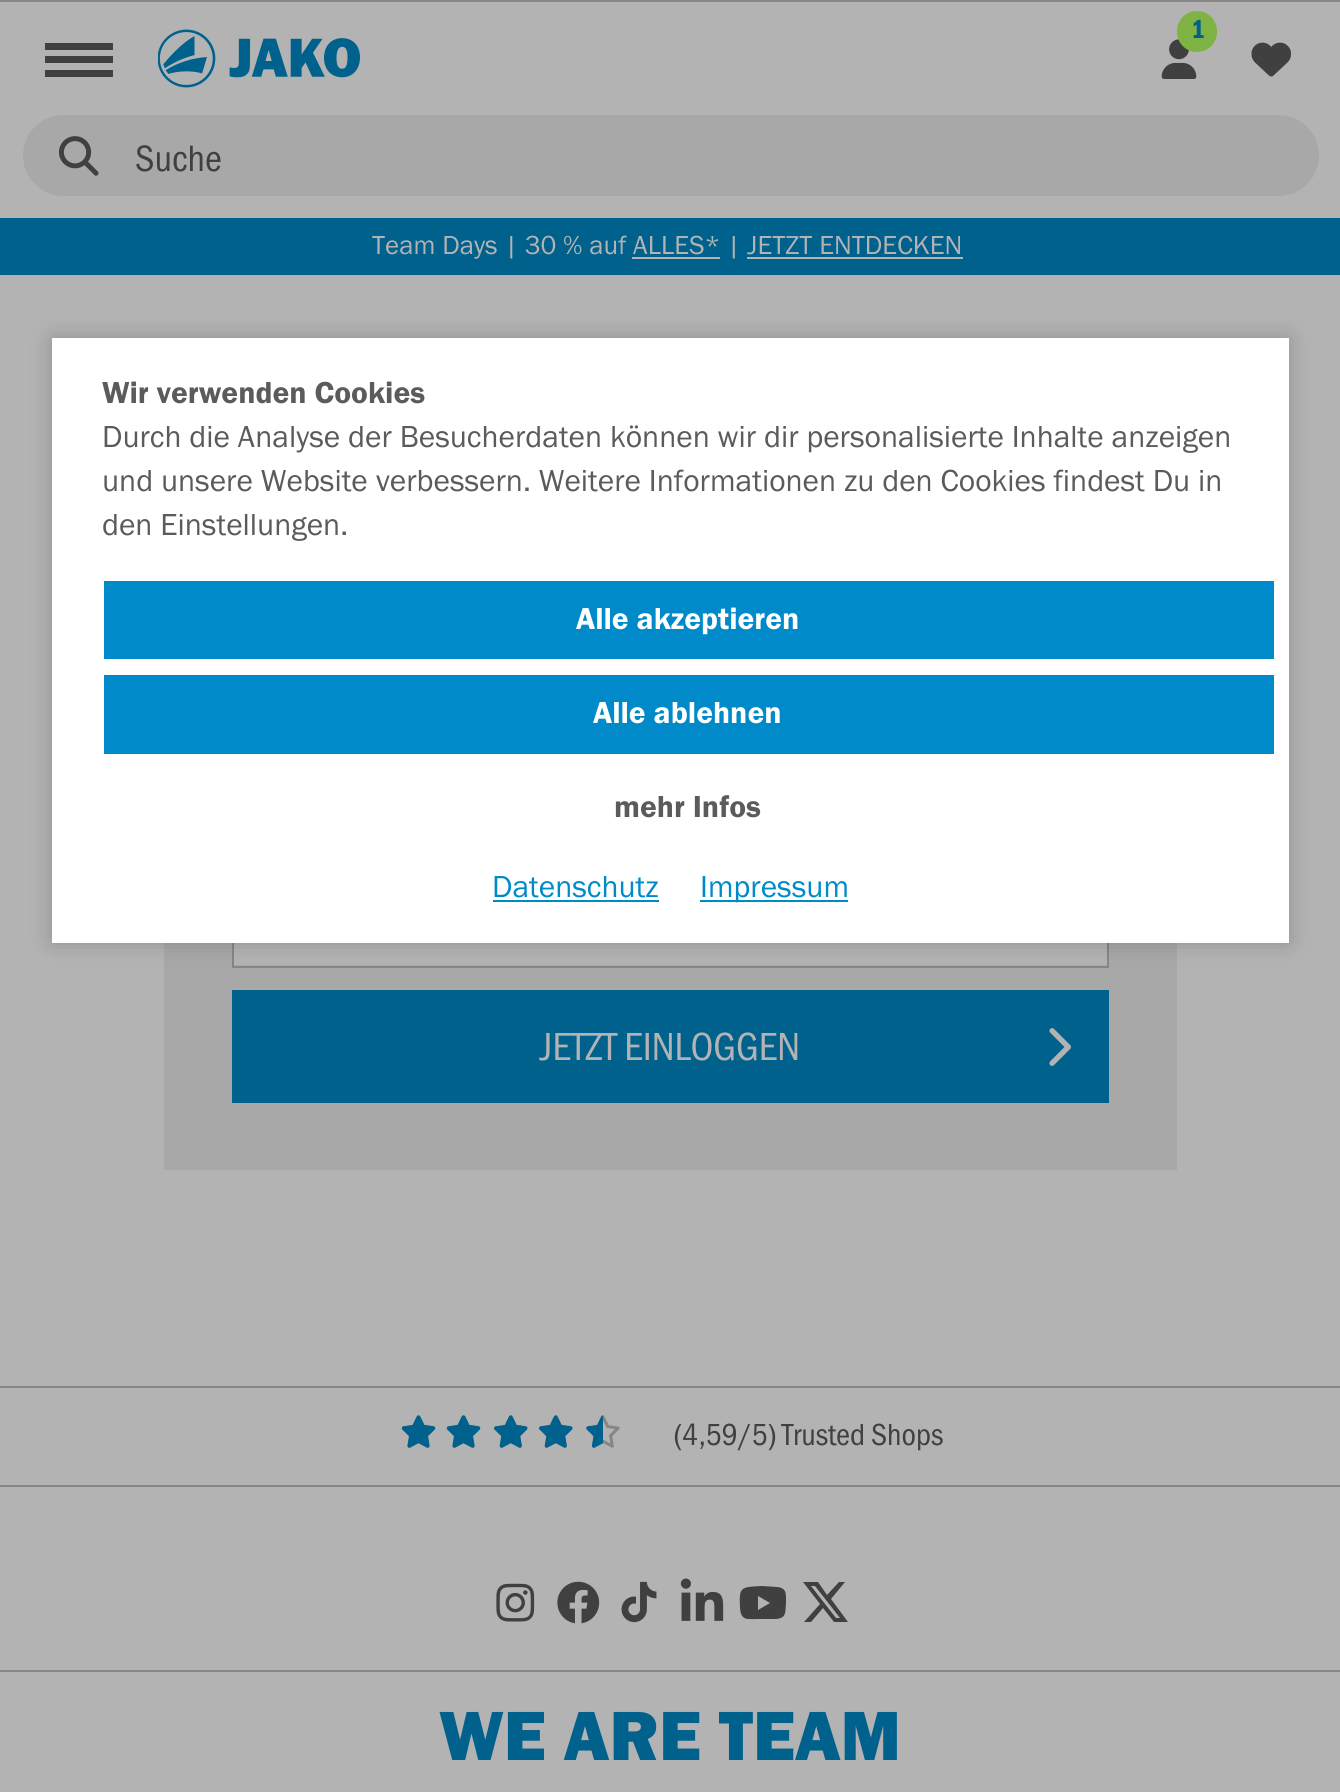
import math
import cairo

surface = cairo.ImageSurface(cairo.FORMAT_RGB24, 1340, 1792)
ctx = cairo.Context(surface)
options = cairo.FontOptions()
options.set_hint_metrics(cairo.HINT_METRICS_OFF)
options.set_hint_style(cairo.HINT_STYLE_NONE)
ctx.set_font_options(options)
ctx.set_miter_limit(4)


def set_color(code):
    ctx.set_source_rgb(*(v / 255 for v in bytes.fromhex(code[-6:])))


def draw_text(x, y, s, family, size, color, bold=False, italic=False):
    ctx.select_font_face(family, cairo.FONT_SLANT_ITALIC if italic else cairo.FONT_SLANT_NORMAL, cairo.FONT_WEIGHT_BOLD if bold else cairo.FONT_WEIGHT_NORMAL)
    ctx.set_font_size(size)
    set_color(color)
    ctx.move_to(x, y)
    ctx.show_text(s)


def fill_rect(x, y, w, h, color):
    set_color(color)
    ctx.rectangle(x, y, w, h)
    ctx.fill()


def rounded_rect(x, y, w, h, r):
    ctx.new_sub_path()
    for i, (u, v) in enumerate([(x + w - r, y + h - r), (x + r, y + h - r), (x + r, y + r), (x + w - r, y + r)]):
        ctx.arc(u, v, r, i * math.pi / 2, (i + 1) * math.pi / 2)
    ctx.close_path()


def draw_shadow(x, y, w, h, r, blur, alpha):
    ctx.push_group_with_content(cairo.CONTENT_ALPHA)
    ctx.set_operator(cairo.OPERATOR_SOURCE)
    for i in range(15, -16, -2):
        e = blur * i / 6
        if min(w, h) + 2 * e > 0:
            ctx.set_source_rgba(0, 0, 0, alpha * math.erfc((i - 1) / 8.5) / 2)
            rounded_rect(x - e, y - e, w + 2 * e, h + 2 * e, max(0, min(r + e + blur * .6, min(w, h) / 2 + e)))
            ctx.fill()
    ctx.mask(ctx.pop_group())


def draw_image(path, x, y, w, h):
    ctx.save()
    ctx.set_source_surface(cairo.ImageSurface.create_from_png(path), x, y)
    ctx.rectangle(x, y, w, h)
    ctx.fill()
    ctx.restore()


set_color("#b3b3b3")
ctx.paint()
fill_rect(0, 0, 1340, 2, "#868686")
fill_rect(45, 43, 68, 7, "#404040")
fill_rect(45, 56, 68, 7, "#404040")
fill_rect(45, 70, 68, 7, "#404040")
draw_image("assets/img1.png", 158, 29, 202, 59)
draw_image("assets/img2.png", 1161, 39, 36, 40)
set_color("#7fb343")
rounded_rect(1177, 11, 40, 41, 20)
ctx.fill()
draw_text(1191, 38, "1", "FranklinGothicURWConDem", 27, "#00618d")
draw_image("assets/img3.png", 1251, 42, 41, 35)
set_color("#a8a8a8")
rounded_rect(23, 115, 1296, 81, 40.5)
ctx.fill()
draw_image("assets/img4.png", 58, 136, 41, 40)
draw_text(135, 171, "Suche", "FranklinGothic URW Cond", 38, "#404040")
fill_rect(0, 218, 1340, 57, "#00618d")
draw_text(372, 254, "Team Days | 30 % auf ALLES* | JETZT ENTDECKEN", "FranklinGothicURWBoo", 27, "#b3b3b3")
fill_rect(632, 257, 88, 2, "#b3b3b3")
fill_rect(747, 257, 216, 2, "#b3b3b3")
fill_rect(164, 943, 1013, 227, "#a8a8a8")
fill_rect(234, 943, 873, 22, "#b3b3b3")
ctx.rectangle(233, 856, 875, 111)
set_color("#868686")
ctx.stroke()
fill_rect(232, 990, 877, 113, "#00618d")
draw_text(540, 1060, "JETZT EINLOGGEN", "FranklinGothic URW Cond", 40.5, "#b3b3b3")
draw_image("assets/img5.png", 1049, 1028, 22, 38)
fill_rect(0, 1386, 1340, 2, "#868686")
draw_image("assets/img6.png", 401, 1415, 35, 33)
draw_image("assets/img6.png", 446, 1415, 35, 33)
draw_image("assets/img7.png", 494, 1415, 34, 33)
draw_image("assets/img7.png", 539, 1415, 34, 33)
draw_image("assets/img8.png", 586, 1415, 34, 33)
draw_image("assets/img9.png", 401, 1415, 35, 33)
draw_image("assets/img9.png", 446, 1415, 35, 33)
draw_image("assets/img10.png", 494, 1415, 34, 33)
draw_image("assets/img10.png", 539, 1415, 34, 33)
draw_image("assets/img11.png", 586, 1415, 17, 33)
draw_text(674, 1445, "(4,59/5) Trusted Shops", "FranklinGothic URW Cond", 31.5, "#404040")
fill_rect(0, 1485, 1340, 2, "#868686")
draw_image("assets/img12.png", 496, 1583, 39, 39)
draw_image("assets/img13.png", 557, 1581, 43, 43)
draw_image("assets/img14.png", 621, 1581, 36, 42)
draw_image("assets/img15.png", 680, 1578, 44, 43)
set_color("#404040")
ctx.new_path()
ctx.move_to(786, 1603)
ctx.curve_to(785, 1612, 787, 1618, 776, 1619)
ctx.line_to(758, 1619)
ctx.curve_to(747, 1619, 741, 1621, 740, 1608)
ctx.curve_to(739, 1587, 740, 1587, 762, 1586)
ctx.line_to(777, 1587)
ctx.curve_to(787, 1588, 786, 1594, 786, 1603)
ctx.close_path()
ctx.move_to(770, 1603)
ctx.line_to(758, 1596)
ctx.line_to(758, 1610)
ctx.close_path()
ctx.fill()
ctx.new_path()
ctx.move_to(839, 1582)
ctx.line_to(845, 1582)
ctx.line_to(831, 1599)
ctx.line_to(848, 1622)
ctx.line_to(834, 1622)
ctx.line_to(823, 1608)
ctx.line_to(811, 1622)
ctx.line_to(804, 1622)
ctx.line_to(820, 1604)
ctx.line_to(803, 1582)
ctx.line_to(818, 1582)
ctx.line_to(827, 1595)
ctx.close_path()
ctx.move_to(836, 1618)
ctx.line_to(840, 1618)
ctx.line_to(815, 1586)
ctx.line_to(811, 1586)
ctx.close_path()
ctx.fill()
fill_rect(0, 1670, 1340, 2, "#868686")
draw_text(439, 1760, "WE ARE TEAM", "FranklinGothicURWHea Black", 72, "#00618d")
set_color("#000000")
draw_shadow(52, 338, 1237, 605, 0, 11, 0.2)
fill_rect(52, 338, 1237, 605, "#ffffff")
draw_text(102, 403, "Wir verwenden Cookies", "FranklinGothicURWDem", 31.5, "#5b5b5b")
draw_text(102, 447, "Durch die Analyse der Besucherdaten können wir dir personalisierte Inhalte anzeigen", "FranklinGothicURWBoo", 31.5, "#5b5b5b")
draw_text(102, 491, "und unsere Website verbessern. Weitere Informationen zu den Cookies findest Du in", "FranklinGothicURWBoo", 31.5, "#5b5b5b")
draw_text(102, 535, "den Einstellungen.", "FranklinGothicURWBoo", 31.5, "#5b5b5b")
fill_rect(104, 581, 1170, 78, "#008ac9")
draw_text(576, 629, "Alle akzeptieren", "FranklinGothicURWDem", 31.5, "#ffffff")
fill_rect(104, 675, 1170, 79, "#008ac9")
draw_text(593, 723, "Alle ablehnen", "FranklinGothicURWDem", 31.5, "#ffffff")
draw_text(614, 817, "mehr Infos", "FranklinGothicURWDem", 31.5, "#5b5b5b")
draw_text(492, 897, "Datenschutz", "FranklinGothicURWBoo", 31.5, "#008ac9")
fill_rect(493, 900, 166, 2, "#008ac9")
fill_rect(700, 900, 148, 2, "#008ac9")
draw_text(700, 897, "Impressum", "FranklinGothicURWBoo", 31.5, "#008ac9")
surface.write_to_png("output.png")
